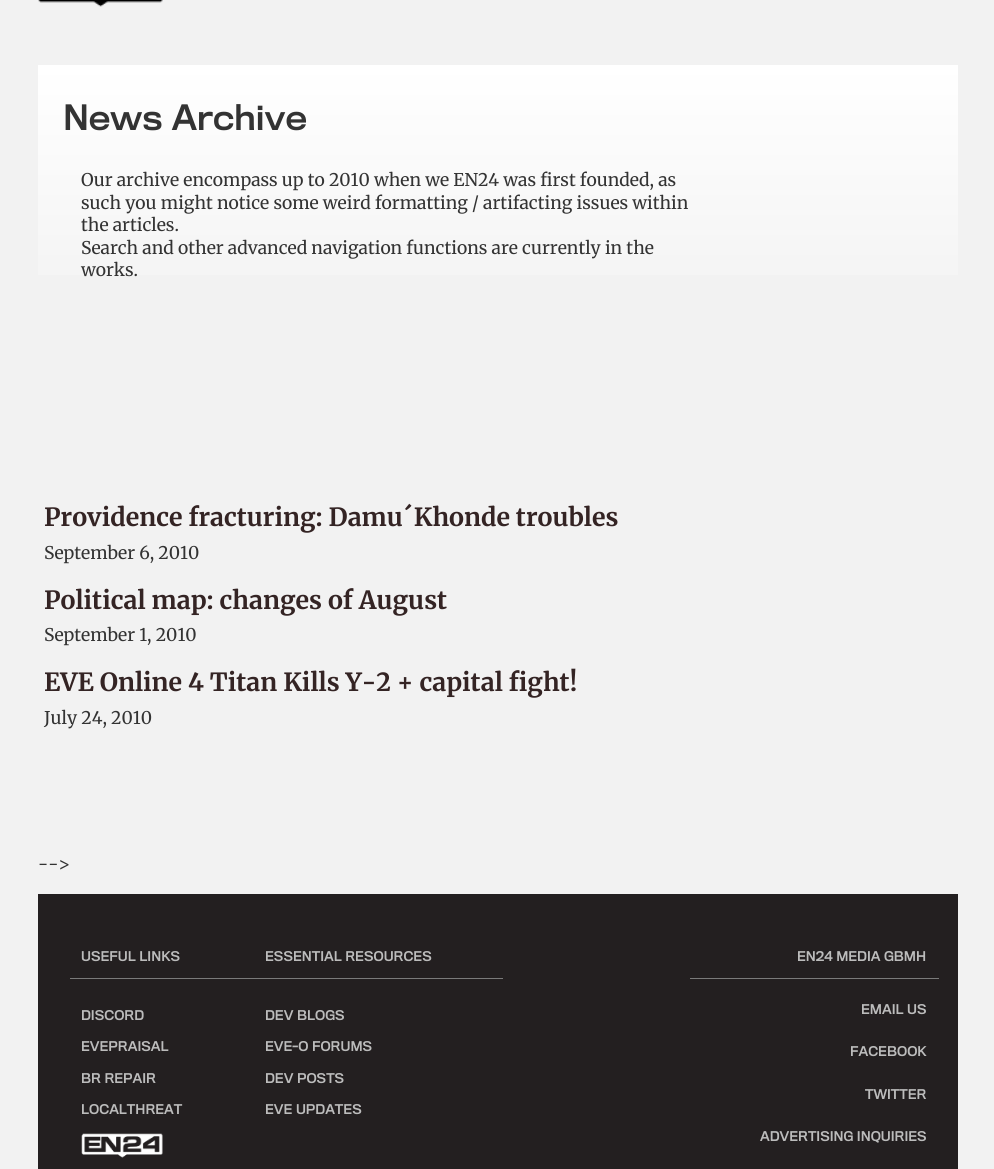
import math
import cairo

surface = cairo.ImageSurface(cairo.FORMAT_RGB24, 994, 1169)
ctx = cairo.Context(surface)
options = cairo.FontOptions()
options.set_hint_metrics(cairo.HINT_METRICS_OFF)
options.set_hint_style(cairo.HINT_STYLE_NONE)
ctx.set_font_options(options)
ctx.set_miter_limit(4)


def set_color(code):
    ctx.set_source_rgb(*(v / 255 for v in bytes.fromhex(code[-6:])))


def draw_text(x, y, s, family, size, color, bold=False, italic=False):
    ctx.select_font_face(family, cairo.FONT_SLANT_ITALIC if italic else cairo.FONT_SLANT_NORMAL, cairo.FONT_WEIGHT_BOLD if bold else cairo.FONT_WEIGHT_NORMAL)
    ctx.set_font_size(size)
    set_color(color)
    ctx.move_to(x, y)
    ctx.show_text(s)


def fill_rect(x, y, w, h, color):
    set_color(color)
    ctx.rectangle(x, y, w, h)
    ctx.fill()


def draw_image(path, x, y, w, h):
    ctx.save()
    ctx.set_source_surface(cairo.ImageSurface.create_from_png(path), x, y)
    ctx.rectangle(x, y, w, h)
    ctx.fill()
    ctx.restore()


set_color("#f2f2f2")
ctx.paint()
draw_image("assets/img1.png", 38, 0, 125, 7)
gradient = cairo.LinearGradient(498, 325, 498, 65)
gradient.add_color_stop_rgba(0, 0.949, 0.949, 0.949, 1)
gradient.add_color_stop_rgba(1, 1, 1, 1, 1)
ctx.set_source(gradient)
ctx.rectangle(38, 65, 920, 210)
ctx.fill()
draw_text(63, 130, "News Archive", "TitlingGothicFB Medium", 32.5, "#333333")
draw_text(81, 186, "Our archive encompass up to 2010 when we EN24 was first founded, as", "Merriweather", 17.5, "#333333")
draw_text(81, 209, "such you might notice some weird formatting / artifacting issues within", "Merriweather", 17.5, "#333333")
draw_text(81, 231, "the articles.", "Merriweather", 17.5, "#333333")
draw_text(81, 254, "Search and other advanced navigation functions are currently in the", "Merriweather", 17.5, "#333333")
draw_text(81, 276, "works.", "Merriweather", 17.5, "#333333")
draw_text(44, 526, "Providence fracturing: Damu´Khonde troubles", "Merriweather", 25, "#342424", bold=True)
draw_text(44, 559, "September 6, 2010", "Merriweather", 17.5, "#333333")
draw_text(44, 609, "Political map: changes of August", "Merriweather", 25, "#342424", bold=True)
draw_text(44, 641, "September 1, 2010", "Merriweather", 17.5, "#333333")
draw_text(44, 691, "EVE Online 4 Titan Kills Y-2 + capital fight!", "Merriweather", 25, "#342424", bold=True)
draw_text(44, 724, "July 24, 2010", "Merriweather", 17.5, "#333333")
draw_text(38, 870, "-->", "Merriweather", 17.5, "#333333")
fill_rect(38, 894, 920, 275, "#231f20")
fill_rect(70, 978, 433, 1, "#7a7a7a")
draw_text(81, 961, "USEFUL LINKS", "TitlingGothicFB Medium", 12.5, "#bcbcbc")
draw_text(81, 1020, "DISCORD", "TitlingGothicFB Medium", 12.5, "#bcbcbc")
draw_text(81, 1051, "EVEPRAISAL", "TitlingGothicFB Medium", 12.5, "#bcbcbc")
draw_text(81, 1083, "BR REPAIR", "TitlingGothicFB Medium", 12.5, "#bcbcbc")
draw_text(81, 1114, "LOCALTHREAT", "TitlingGothicFB Medium", 12.5, "#bcbcbc")
draw_image("assets/img2.png", 81, 1133, 82, 25)
draw_text(265, 961, "ESSENTIAL RESOURCES", "TitlingGothicFB Medium", 12.5, "#bcbcbc")
draw_text(265, 1020, "DEV BLOGS", "TitlingGothicFB Medium", 12.5, "#bcbcbc")
draw_text(265, 1051, "EVE-O FORUMS", "TitlingGothicFB Medium", 12.5, "#bcbcbc")
draw_text(265, 1083, "DEV POSTS", "TitlingGothicFB Medium", 12.5, "#bcbcbc")
draw_text(265, 1114, "EVE UPDATES", "TitlingGothicFB Medium", 12.5, "#bcbcbc")
fill_rect(690, 978, 249, 1, "#7a7a7a")
draw_text(797, 961, "EN24 MEDIA GBMH", "TitlingGothicFB Medium", 12.5, "#bcbcbc")
draw_text(861, 1014, "EMAIL US", "TitlingGothicFB Medium", 12.5, "#bcbcbc")
draw_text(850, 1056, "FACEBOOK", "TitlingGothicFB Medium", 12.5, "#bcbcbc")
draw_text(865, 1099, "TWITTER", "TitlingGothicFB Medium", 12.5, "#bcbcbc")
draw_text(760, 1141, "ADVERTISING INQUIRIES", "TitlingGothicFB Medium", 12.5, "#bcbcbc")
surface.write_to_png("output.png")
